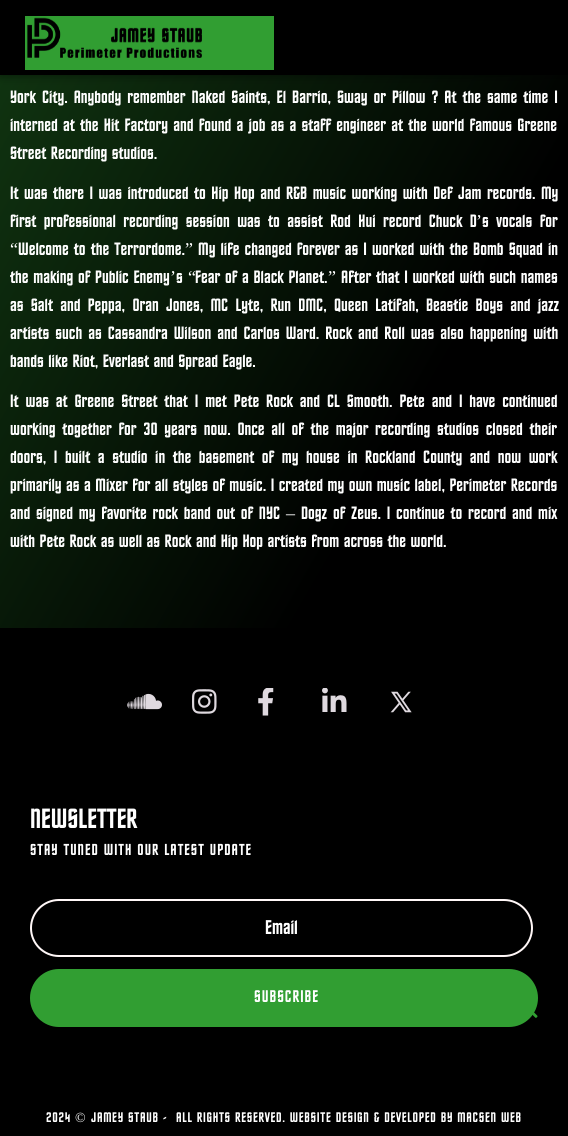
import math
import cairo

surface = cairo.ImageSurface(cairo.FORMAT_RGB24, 568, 1136)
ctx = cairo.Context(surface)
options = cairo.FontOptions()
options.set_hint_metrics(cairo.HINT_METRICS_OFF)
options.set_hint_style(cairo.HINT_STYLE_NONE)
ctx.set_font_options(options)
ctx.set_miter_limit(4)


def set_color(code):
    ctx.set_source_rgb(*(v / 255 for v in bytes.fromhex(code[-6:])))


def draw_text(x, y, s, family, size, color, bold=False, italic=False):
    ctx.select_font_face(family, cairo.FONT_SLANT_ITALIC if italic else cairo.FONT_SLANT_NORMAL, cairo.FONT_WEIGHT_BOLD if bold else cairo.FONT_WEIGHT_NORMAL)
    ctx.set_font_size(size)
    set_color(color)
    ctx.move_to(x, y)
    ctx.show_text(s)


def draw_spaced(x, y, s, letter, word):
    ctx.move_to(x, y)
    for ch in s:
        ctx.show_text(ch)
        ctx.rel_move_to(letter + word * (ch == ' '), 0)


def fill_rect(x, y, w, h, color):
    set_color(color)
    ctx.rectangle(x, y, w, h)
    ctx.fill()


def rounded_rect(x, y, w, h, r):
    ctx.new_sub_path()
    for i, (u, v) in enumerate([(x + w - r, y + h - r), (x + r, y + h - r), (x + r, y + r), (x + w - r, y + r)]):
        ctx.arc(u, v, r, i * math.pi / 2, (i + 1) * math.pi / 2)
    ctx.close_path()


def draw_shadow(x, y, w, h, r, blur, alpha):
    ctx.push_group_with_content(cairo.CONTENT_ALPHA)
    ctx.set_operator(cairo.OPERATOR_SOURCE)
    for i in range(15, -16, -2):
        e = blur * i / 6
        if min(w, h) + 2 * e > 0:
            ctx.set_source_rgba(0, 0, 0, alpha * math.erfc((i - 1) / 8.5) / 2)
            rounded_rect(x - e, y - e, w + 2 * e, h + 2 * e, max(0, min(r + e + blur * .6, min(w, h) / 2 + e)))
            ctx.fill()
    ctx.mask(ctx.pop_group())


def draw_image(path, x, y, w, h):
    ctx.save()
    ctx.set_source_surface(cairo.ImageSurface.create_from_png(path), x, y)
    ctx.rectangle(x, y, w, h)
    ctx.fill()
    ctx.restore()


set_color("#000000")
ctx.paint()
gradient = cairo.LinearGradient(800, 226, -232, -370)
gradient.add_color_stop_rgba(0.2, 0, 0, 0, 1)
gradient.add_color_stop_rgba(1, 0.11, 0.361, 0.114, 1)
ctx.set_source(gradient)
ctx.rectangle(0, 75, 568, 553)
ctx.fill()
set_color("#000000")
draw_shadow(0, 0, 568, 75, 0, 5, 0.5)
fill_rect(25, 16, 249, 54, "#319e32")
draw_image("assets/img1.png", 27, 17, 175, 41)
ctx.select_font_face("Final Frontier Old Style")
ctx.set_font_size(18)
set_color("#ffffff")
draw_spaced(10, 103, "York City. Anybody remember Naked Saints, El Barrio, Sway or Pillow ? At the same time I", 0, 1.5)
draw_spaced(10, 131, "interned at the Hit Factory and found a job as a staff engineer at the world famous Greene", 0, 0.75)
draw_text(10, 159, "Street Recording studios.", "Final Frontier Old Style", 18, "#ffffff")
draw_spaced(10, 199, "It was there I was introduced to Hip Hop and R&B music working with Def Jam records. My", 0, 1)
draw_spaced(10, 227, "first professional recording session was to assist Rod Hui record Chuck D", 0, 3)
draw_text(476, 227, "’", "Liberation Serif", 18, "#ffffff")
ctx.select_font_face("Final Frontier Old Style")
draw_spaced(482, 227, "s vocals for", 0, 3)
draw_text(10, 255, "“", "Liberation Serif", 18, "#ffffff")
ctx.select_font_face("Final Frontier Old Style")
draw_spaced(18, 255, "Welcome to the Terrordome.", 0, 0.6)
draw_text(185, 255, "”", "Liberation Serif", 18, "#ffffff")
ctx.select_font_face("Final Frontier Old Style")
draw_spaced(198, 255, "My life changed forever as I worked with the Bomb Squad in", 0, 0.6)
draw_spaced(10, 283, "the making of Public Enemy", 0, 0.25)
draw_text(170, 283, "’", "Liberation Serif", 18, "#ffffff")
draw_text(176, 283, "s", "Final Frontier Old Style", 18, "#ffffff")
draw_text(188, 283, "“", "Liberation Serif", 18, "#ffffff")
ctx.select_font_face("Final Frontier Old Style")
draw_spaced(195, 283, "Fear of a Black Planet.", 0, 0.25)
draw_text(328, 283, "”", "Liberation Serif", 18, "#ffffff")
ctx.select_font_face("Final Frontier Old Style")
draw_spaced(341, 283, "After that I worked with such names", 0, 0.25)
draw_spaced(10, 311, "as Salt and Peppa, Oran Jones, MC Lyte, Run DMC, Queen Latifah, Beastie Boys and jazz", 0, 2.75)
draw_spaced(10, 339, "artists such as Cassandra Wilson and Carlos Ward. Rock and Roll was also happening with", 0, 1.5)
draw_text(10, 367, "bands like Riot, Everlast and Spread Eagle.", "Final Frontier Old Style", 18, "#ffffff")
draw_spaced(10, 407, "It was at Greene Street that I met Pete Rock and CL Smooth. Pete and I have continued", 0, 2.4)
draw_spaced(10, 435, "working together for 30 years now. Once all of the major recording studios closed their", 0, 2.25)
draw_spaced(10, 463, "doors, I built a studio in the basement of my house in Rockland County and now work", 0, 3.1)
draw_text(10, 491, "primarily as a Mixer for all styles of music. I created my own music label, Perimeter Records", "Final Frontier Old Style", 18, "#ffffff")
draw_spaced(10, 519, "and signed my favorite rock band out of NYC", 0, 1.25)
draw_text(286, 519, "–", "Liberation Serif", 18, "#ffffff")
ctx.select_font_face("Final Frontier Old Style")
draw_spaced(301, 519, "Dogz of Zeus. I continue to record and mix", 0, 1.25)
draw_text(10, 547, "with Pete Rock as well as Rock and Hip Hop artists from across the world.", "Final Frontier Old Style", 18, "#ffffff")
draw_image("assets/img2.png", 127, 693, 35, 17)
draw_image("assets/img3.png", 192, 689, 25, 25)
draw_image("assets/img4.png", 258, 688, 16, 28)
draw_image("assets/img5.png", 322, 688, 25, 24)
draw_image("assets/img6.png", 390, 691, 22, 22)
draw_text(30, 828, "NEWSLETTER", "Final Frontier Old Style", 28, "#ffffff")
ctx.set_font_size(16)
draw_spaced(30, 855, "STAY TUNED WITH OUR LATEST UPDATE", 1, 0)
rounded_rect(31, 900, 501, 56, 28)
set_color("#fff7f7")
ctx.stroke()
draw_text(265, 934, "Email", "Final Frontier Old Style", 20, "#ffffff")
set_color("#319e32")
rounded_rect(30, 969, 508, 58, 29)
ctx.fill()
ctx.set_font_size(17)
set_color("#ffffff")
draw_spaced(254, 1002, "SUBSCRIBE", 1, 0)
ctx.set_font_size(14)
draw_spaced(46, 1122, "2024", 0.7, 0)
ctx.select_font_face("Liberation Serif")
draw_spaced(75, 1122, "©", 0.7, 0)
ctx.select_font_face("Final Frontier Old Style")
draw_spaced(91, 1122, "JAMEY STAUB -", 0.7, 0)
draw_spaced(176, 1122, "ALL RIGHTS RESERVED. WEBSITE DESIGN & DEVELOPED BY MACSEN WEB", 0.7, 0)
draw_image("assets/img7.png", 532, 1012, 6, 6)
surface.write_to_png("output.png")
